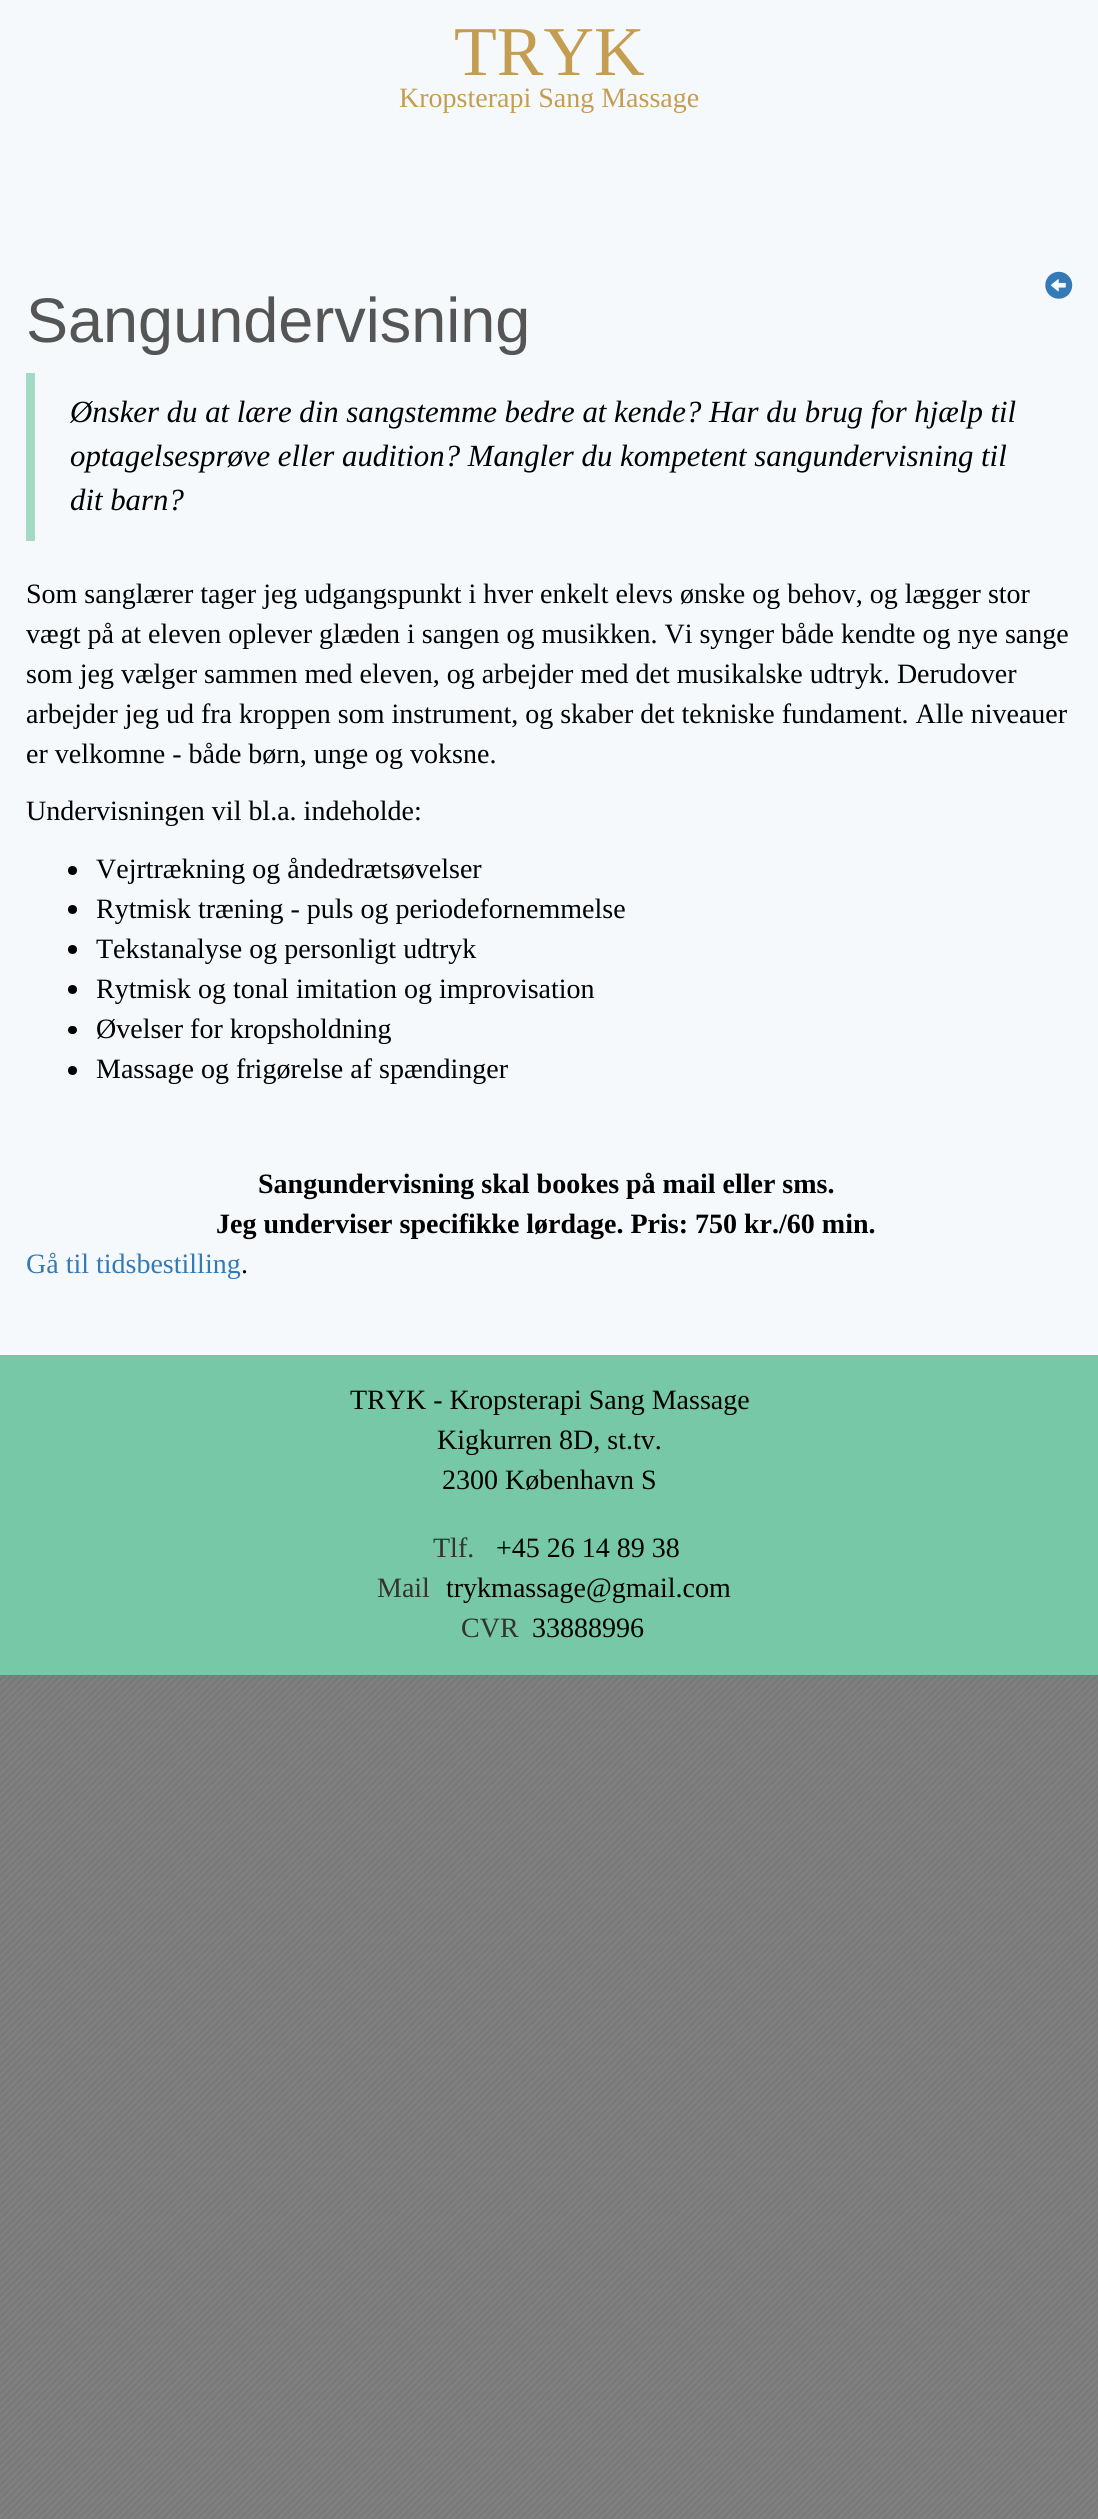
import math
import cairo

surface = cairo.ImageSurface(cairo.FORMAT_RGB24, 1098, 2519)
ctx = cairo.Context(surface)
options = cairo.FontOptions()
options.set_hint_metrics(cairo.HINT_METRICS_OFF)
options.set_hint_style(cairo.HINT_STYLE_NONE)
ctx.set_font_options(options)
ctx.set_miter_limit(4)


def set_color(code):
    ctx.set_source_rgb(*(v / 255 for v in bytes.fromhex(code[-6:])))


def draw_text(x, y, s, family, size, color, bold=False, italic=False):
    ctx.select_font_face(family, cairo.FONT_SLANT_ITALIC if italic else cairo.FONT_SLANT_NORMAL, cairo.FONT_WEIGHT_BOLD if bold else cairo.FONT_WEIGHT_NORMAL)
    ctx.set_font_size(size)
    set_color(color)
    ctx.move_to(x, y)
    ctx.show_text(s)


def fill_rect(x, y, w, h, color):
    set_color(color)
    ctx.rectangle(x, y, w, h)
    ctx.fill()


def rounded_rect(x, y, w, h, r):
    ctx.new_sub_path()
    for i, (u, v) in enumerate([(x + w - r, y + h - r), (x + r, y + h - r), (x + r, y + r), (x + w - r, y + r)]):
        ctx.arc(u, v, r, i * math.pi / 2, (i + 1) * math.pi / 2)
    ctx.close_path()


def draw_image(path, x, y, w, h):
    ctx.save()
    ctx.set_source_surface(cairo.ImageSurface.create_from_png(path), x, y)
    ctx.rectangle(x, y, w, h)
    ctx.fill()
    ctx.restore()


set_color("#808080")
ctx.paint()
draw_image("assets/img1.png", 0, 1675, 1098, 844)
fill_rect(0, 0, 1098, 1355, "#f5f9fc")
draw_text(454, 75, "TRYK", "Liberation Serif", 70, "#c59d51")
draw_text(399, 107, "Kropsterapi Sang Massage", "Liberation Serif", 28, "#c59d51")
draw_image("assets/img2.png", 1045, 271, 28, 28)
draw_text(26, 342, "Sangundervisning", "Liberation Sans", 63, "#555555")
fill_rect(26, 373, 9, 168, "#a4dac4")
draw_text(70, 422, "Ønsker du at lære din sangstemme bedre at kende? Har du brug for hjælp til", "Liberation Serif", 30.8, "#000000", italic=True)
draw_text(70, 466, "optagelsesprøve eller audition? Mangler du kompetent sangundervisning til", "Liberation Serif", 30.8, "#000000", italic=True)
draw_text(70, 510, "dit barn?", "Liberation Serif", 30.8, "#000000", italic=True)
draw_text(26, 603, "Som sanglærer tager jeg udgangspunkt i hver enkelt elevs ønske og behov, og lægger stor", "Liberation Serif", 28, "#000000")
draw_text(26, 643, "vægt på at eleven oplever glæden i sangen og musikken. Vi synger både kendte og nye sange", "Liberation Serif", 28, "#000000")
draw_text(26, 683, "som jeg vælger sammen med eleven, og arbejder med det musikalske udtryk. Derudover", "Liberation Serif", 28, "#000000")
draw_text(26, 723, "arbejder jeg ud fra kroppen som instrument, og skaber det tekniske fundament. Alle niveauer", "Liberation Serif", 28, "#000000")
draw_text(26, 763, "er velkomne - både børn, unge og voksne.", "Liberation Serif", 28, "#000000")
draw_text(26, 820, "Undervisningen vil bl.a. indeholde:", "Liberation Serif", 28, "#000000")
ctx.new_path()
ctx.arc(72.5, 870.5, 4.5, 0, 2 * math.pi)
ctx.fill()
draw_text(96, 878, "Vejrtrækning og åndedrætsøvelser", "Liberation Serif", 28, "#000000")
ctx.new_path()
ctx.arc(72.5, 909.5, 4.5, 0, 2 * math.pi)
ctx.fill()
draw_text(96, 918, "Rytmisk træning - puls og periodefornemmelse", "Liberation Serif", 28, "#000000")
ctx.new_path()
ctx.arc(72.5, 949.5, 4.5, 0, 2 * math.pi)
ctx.fill()
draw_text(96, 958, "Tekstanalyse og personligt udtryk", "Liberation Serif", 28, "#000000")
ctx.new_path()
ctx.arc(72.5, 989.5, 4.5, 0, 2 * math.pi)
ctx.fill()
draw_text(96, 998, "Rytmisk og tonal imitation og improvisation", "Liberation Serif", 28, "#000000")
rounded_rect(68, 1026, 9, 8, 4)
ctx.fill()
draw_text(96, 1038, "Øvelser for kropsholdning", "Liberation Serif", 28, "#000000")
ctx.new_path()
ctx.arc(72.5, 1070.5, 4.5, 0, 2 * math.pi)
ctx.fill()
draw_text(96, 1078, "Massage og frigørelse af spændinger", "Liberation Serif", 28, "#000000")
draw_text(258, 1193, "Sangundervisning skal bookes på mail eller sms.", "Liberation Serif", 28, "#000000", bold=True)
draw_text(216, 1233, "Jeg underviser specifikke lørdage. Pris: 750 kr./60 min.", "Liberation Serif", 28, "#000000", bold=True)
draw_text(26, 1273, "Gå til tidsbestilling", "Liberation Serif", 28, "#337ab7")
draw_text(241, 1273, ".", "Liberation Serif", 28, "#000000")
fill_rect(0, 1355, 1098, 320, "#77c8a6")
draw_text(350, 1409, "TRYK - Kropsterapi Sang Massage", "Liberation Serif", 28, "#000000")
draw_text(437, 1449, "Kigkurren 8D, st.tv.", "Liberation Serif", 28, "#000000")
draw_text(442, 1489, "2300 København S", "Liberation Serif", 28, "#000000")
draw_text(433, 1557, "Tlf.", "Liberation Serif", 28, "#333333")
draw_text(496, 1557, "+45 26 14 89 38", "Liberation Serif", 28, "#000000")
draw_text(377, 1597, "Mail", "Liberation Serif", 28, "#333333")
draw_text(446, 1597, "trykmassage@gmail.com", "Liberation Serif", 28, "#000000")
draw_text(461, 1637, "CVR", "Liberation Serif", 28, "#333333")
draw_text(532, 1637, "33888996", "Liberation Serif", 28, "#000000")
surface.write_to_png("output.png")
